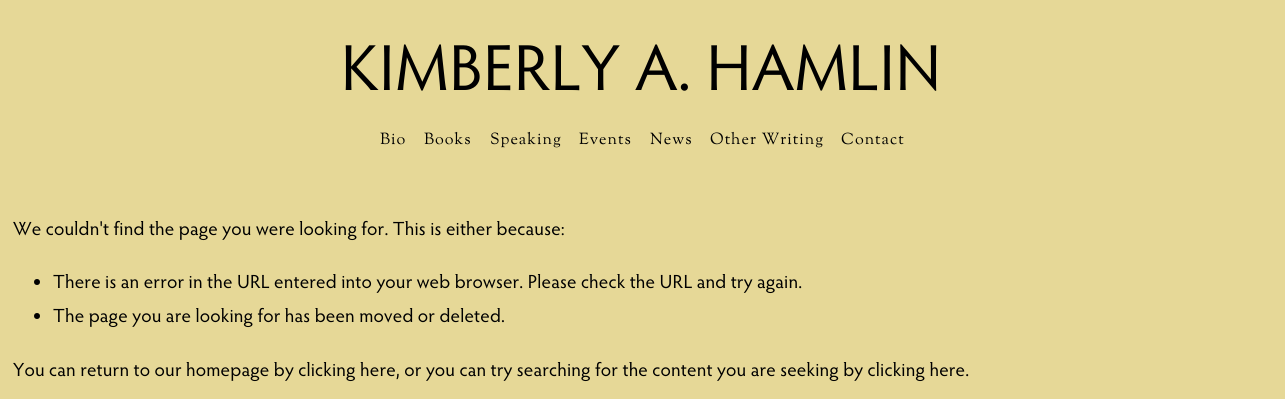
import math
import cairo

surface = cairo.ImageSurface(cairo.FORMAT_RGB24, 1285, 399)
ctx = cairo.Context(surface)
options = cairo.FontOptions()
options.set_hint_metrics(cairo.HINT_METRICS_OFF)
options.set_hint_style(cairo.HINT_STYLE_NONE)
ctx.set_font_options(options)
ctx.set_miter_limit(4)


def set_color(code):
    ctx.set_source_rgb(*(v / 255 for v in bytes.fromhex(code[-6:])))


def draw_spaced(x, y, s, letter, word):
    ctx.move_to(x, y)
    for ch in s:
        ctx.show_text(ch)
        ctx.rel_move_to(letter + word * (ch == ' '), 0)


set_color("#e6d897")
ctx.paint()
ctx.select_font_face("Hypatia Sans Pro")
ctx.set_font_size(65.25)
set_color("#000000")
draw_spaced(341, 90, "KIMBERLY A. HAMLIN", 0.6, 0)
ctx.select_font_face("Sorts Mill Goudy")
ctx.set_font_size(16)
draw_spaced(380, 144, "Bio", 1, 0)
draw_spaced(424, 144, "Books", 1, 0)
draw_spaced(490, 144, "Speaking", 1, 0)
draw_spaced(579, 144, "Events", 1, 0)
draw_spaced(650, 144, "News", 1, 0)
draw_spaced(710, 144, "Other Writing", 1, 0)
draw_spaced(841, 144, "Contact", 1, 0)
ctx.select_font_face("Hypatia Sans Pro")
ctx.set_font_size(19.08)
draw_spaced(13, 235, "We couldn't find the page you were looking for. This is either because:", 0.19, 0)
ctx.new_path()
ctx.arc(37, 282, 3, 0, 2 * math.pi)
ctx.fill()
draw_spaced(53, 288, "There is an error in the URL entered into your web browser. Please check the URL and try again.", 0.19, 0)
ctx.new_path()
ctx.arc(37, 316, 3, 0, 2 * math.pi)
ctx.fill()
draw_spaced(53, 322, "The page you are looking for has been moved or deleted.", 0.19, 0)
draw_spaced(13, 376, "You can return to our homepage by clicking here, or you can try searching for the content you are seeking by clicking here.", 0.19, 0)
surface.write_to_png("output.png")
